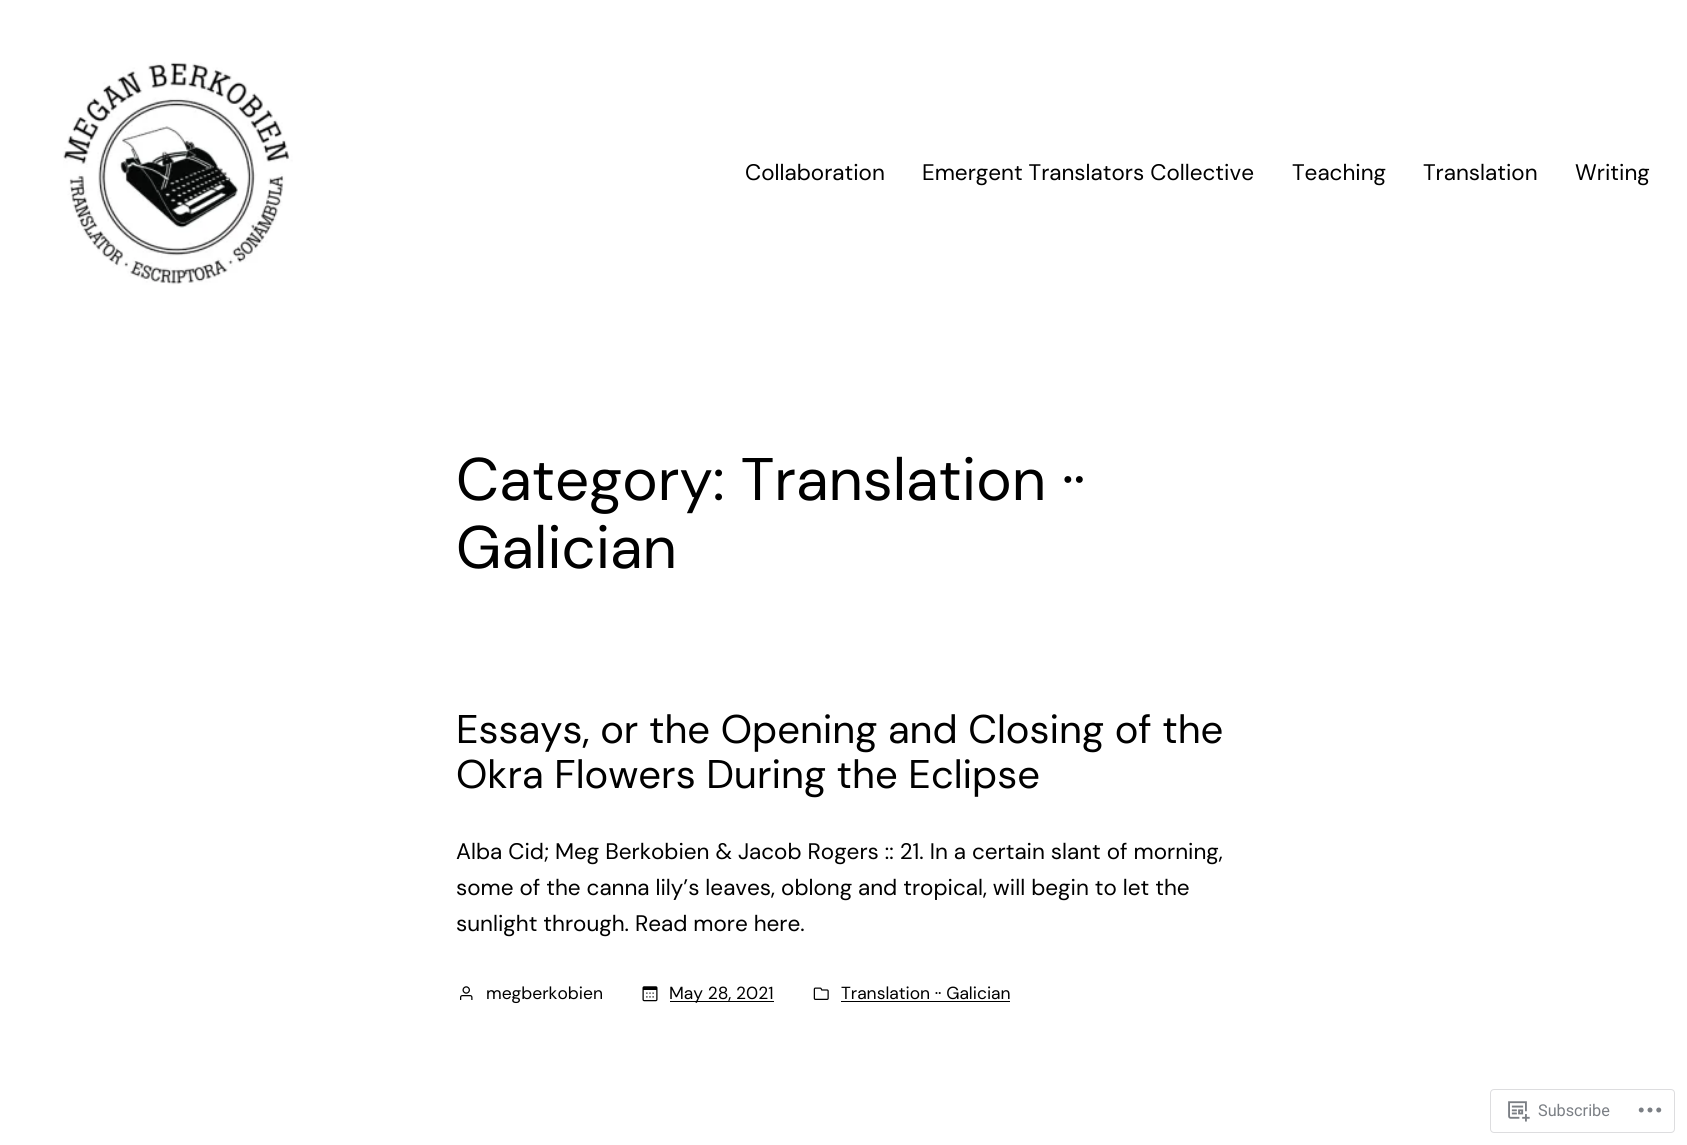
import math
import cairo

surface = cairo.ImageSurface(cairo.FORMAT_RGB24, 1687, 1145)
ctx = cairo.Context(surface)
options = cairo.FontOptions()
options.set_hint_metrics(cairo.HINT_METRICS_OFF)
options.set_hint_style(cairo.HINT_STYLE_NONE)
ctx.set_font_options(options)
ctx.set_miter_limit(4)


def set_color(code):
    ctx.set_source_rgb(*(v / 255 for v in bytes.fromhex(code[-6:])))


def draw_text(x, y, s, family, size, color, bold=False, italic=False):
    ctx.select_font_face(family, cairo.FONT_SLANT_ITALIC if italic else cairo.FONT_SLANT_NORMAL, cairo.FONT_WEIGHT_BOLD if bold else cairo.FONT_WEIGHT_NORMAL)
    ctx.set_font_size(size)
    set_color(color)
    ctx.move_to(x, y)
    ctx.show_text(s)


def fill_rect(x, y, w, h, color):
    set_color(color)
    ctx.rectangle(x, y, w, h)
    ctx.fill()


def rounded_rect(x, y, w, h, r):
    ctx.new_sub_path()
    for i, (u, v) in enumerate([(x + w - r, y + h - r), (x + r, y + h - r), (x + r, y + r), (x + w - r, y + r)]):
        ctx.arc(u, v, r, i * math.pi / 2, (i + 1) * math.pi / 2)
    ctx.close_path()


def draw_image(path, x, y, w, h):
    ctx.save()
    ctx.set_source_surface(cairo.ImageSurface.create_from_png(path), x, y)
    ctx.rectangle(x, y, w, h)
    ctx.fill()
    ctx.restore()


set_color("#ffffff")
ctx.paint()
draw_image("assets/img1.png", 63, 62, 230, 223)
draw_text(745, 180, "Collaboration", "DM Sans", 22.5, "#000000")
draw_text(922, 180, "Emergent Translators Collective", "DM Sans", 22.5, "#000000")
draw_text(1292, 180, "Teaching", "DM Sans", 22.5, "#000000")
draw_text(1423, 180, "Translation", "DM Sans", 22.5, "#000000")
draw_text(1575, 180, "Writing", "DM Sans", 22.5, "#000000")
draw_text(456, 500, "Category: Translation ··", "DM Sans", 60, "#000000")
draw_text(456, 568, "Galician", "DM Sans", 60, "#000000")
draw_text(456, 743, "Essays, or the Opening and Closing of the", "DM Sans", 40, "#000000")
draw_text(456, 788, "Okra Flowers During the Eclipse", "DM Sans", 40, "#000000")
draw_text(456, 859, "Alba Cid; Meg Berkobien & Jacob Rogers :: 21. In a certain slant of morning,", "DM Sans", 22.5, "#000000")
draw_text(456, 895, "some of the canna lily’s leaves, oblong and tropical, will begin to let the", "DM Sans", 22.5, "#000000")
draw_text(456, 931, "sunlight through. Read more here.", "DM Sans", 22.5, "#000000")
draw_image("assets/img2.png", 460, 986, 13, 14)
draw_text(486, 999, "megberkobien", "DM Sans", 17.5, "#000000")
draw_image("assets/img3.png", 642, 986, 16, 16)
fill_rect(670, 1001, 104, 1, "#000000")
draw_text(669, 999, "May 28, 2021", "DM Sans", 17.5, "#000000")
draw_image("assets/img4.png", 813, 987, 16, 13)
draw_text(841, 999, "Translation ·· Galician", "DM Sans", 17.5, "#000000")
fill_rect(841, 1001, 169, 1, "#000000")
rounded_rect(1490.5, 1089.5, 184, 43, 3.5)
set_color("#dddddf")
ctx.set_line_width(1)
ctx.stroke()
draw_image("assets/img5.png", 1508, 1101, 22, 21)
draw_text(1538, 1116, "Subscribe", "Roboto", 16.25, "#7b7f85")
draw_image("assets/img6.png", 1638, 1107, 24, 6)
surface.write_to_png("output.png")
